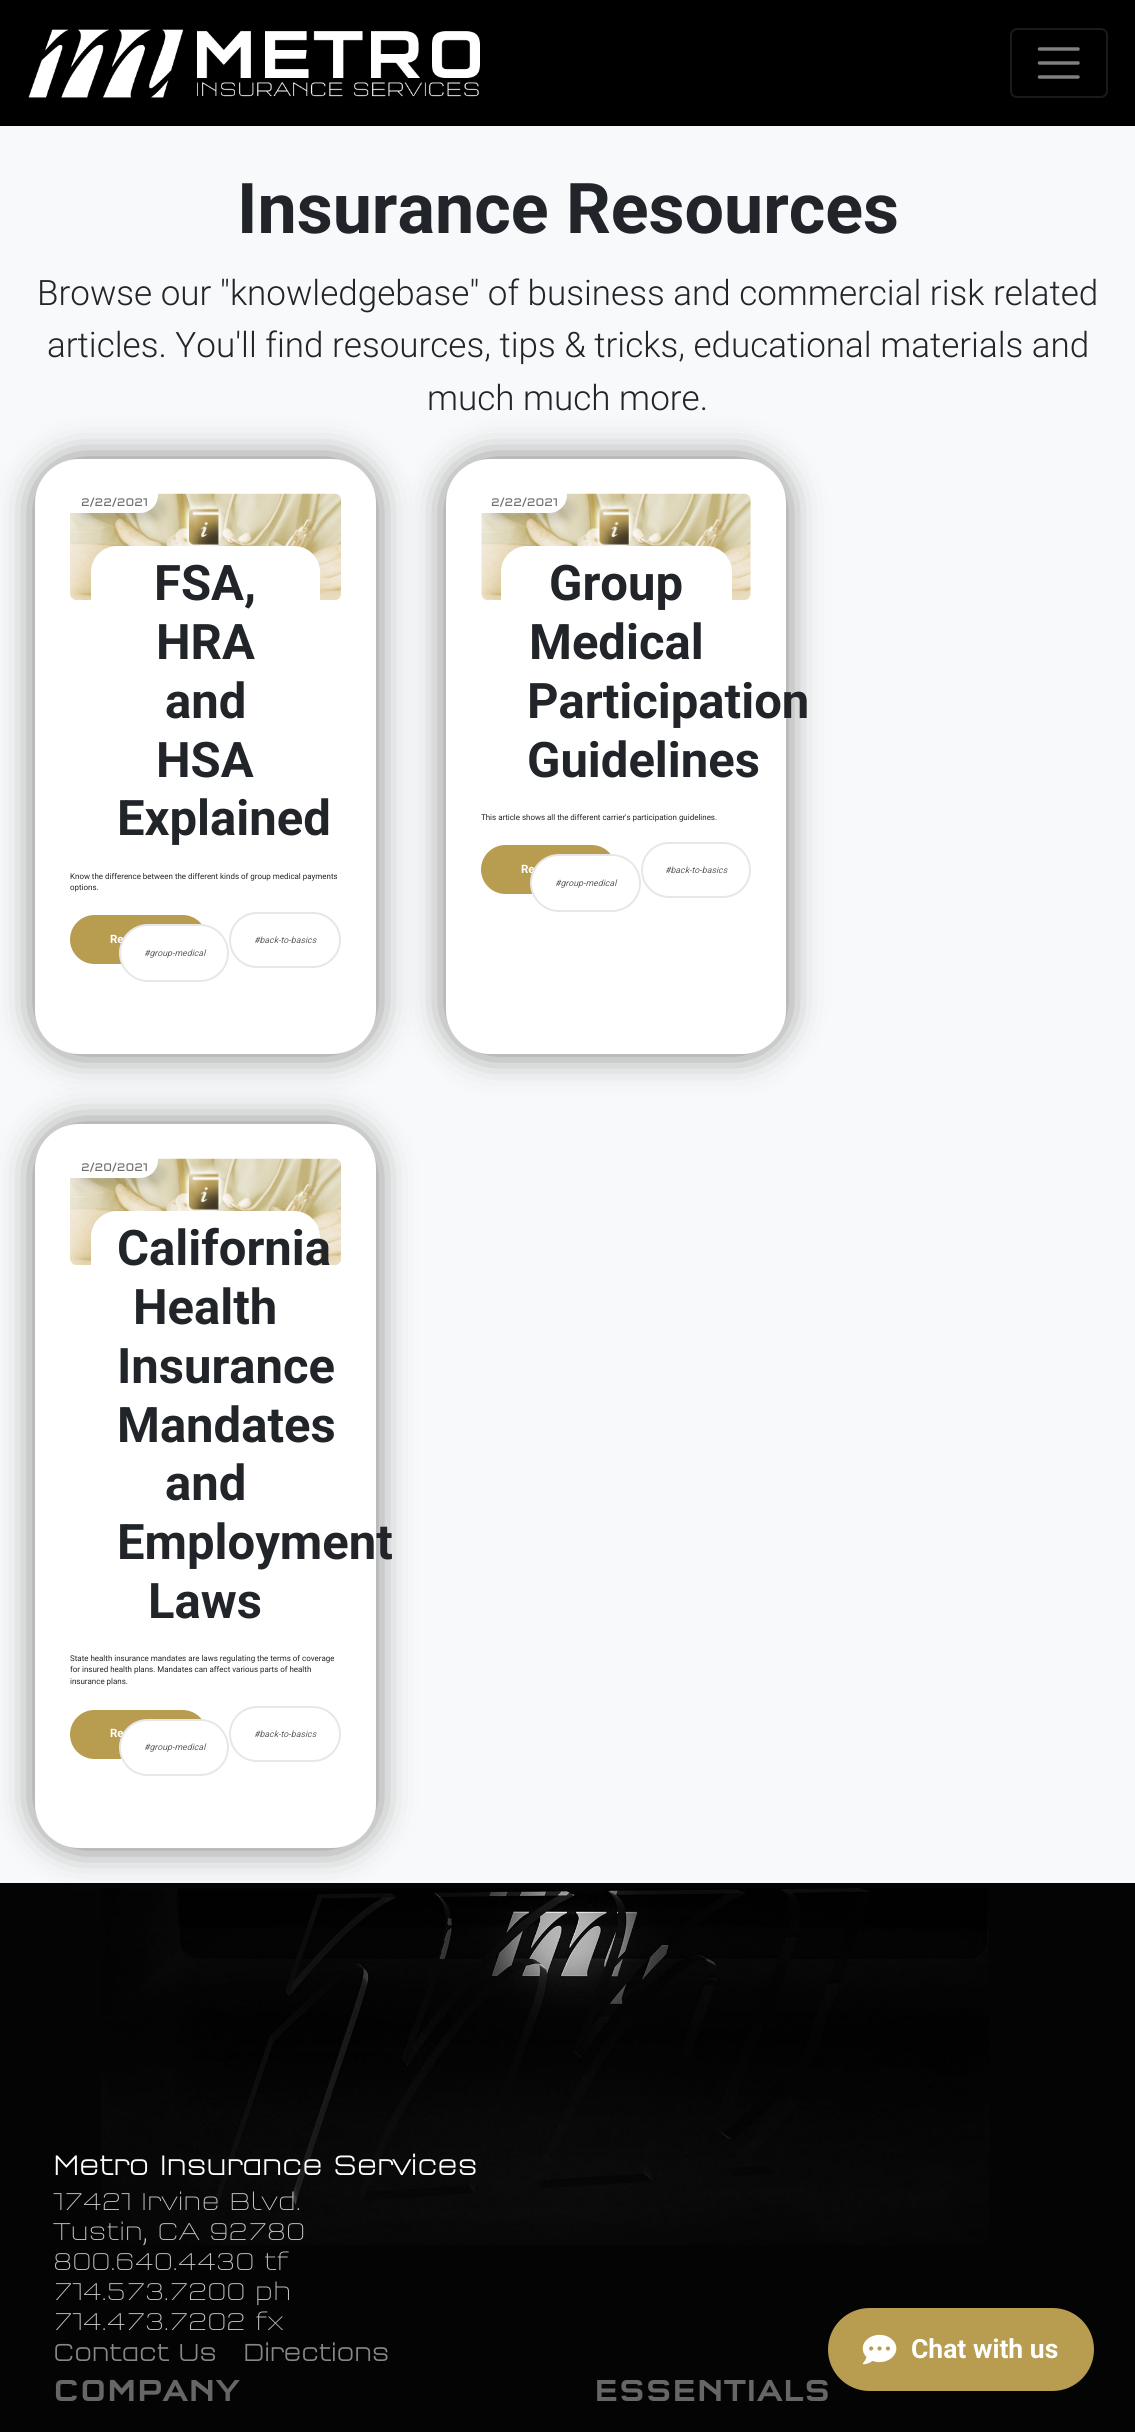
import math
import cairo

surface = cairo.ImageSurface(cairo.FORMAT_RGB24, 1135, 2432)
ctx = cairo.Context(surface)
options = cairo.FontOptions()
options.set_hint_metrics(cairo.HINT_METRICS_OFF)
options.set_hint_style(cairo.HINT_STYLE_NONE)
ctx.set_font_options(options)
ctx.set_miter_limit(4)


def set_color(code):
    ctx.set_source_rgb(*(v / 255 for v in bytes.fromhex(code[-6:])))


def draw_text(x, y, s, family, size, color, bold=False, italic=False):
    ctx.select_font_face(family, cairo.FONT_SLANT_ITALIC if italic else cairo.FONT_SLANT_NORMAL, cairo.FONT_WEIGHT_BOLD if bold else cairo.FONT_WEIGHT_NORMAL)
    ctx.set_font_size(size)
    set_color(color)
    ctx.move_to(x, y)
    ctx.show_text(s)


def fill_rect(x, y, w, h, color):
    set_color(color)
    ctx.rectangle(x, y, w, h)
    ctx.fill()


def rounded_rect(x, y, w, h, r):
    ctx.new_sub_path()
    for i, (u, v) in enumerate([(x + w - r, y + h - r), (x + r, y + h - r), (x + r, y + r), (x + w - r, y + r)]):
        ctx.arc(u, v, r, i * math.pi / 2, (i + 1) * math.pi / 2)
    ctx.close_path()


def draw_shadow(x, y, w, h, r, blur, alpha):
    ctx.push_group_with_content(cairo.CONTENT_ALPHA)
    ctx.set_operator(cairo.OPERATOR_SOURCE)
    for i in range(15, -16, -2):
        e = blur * i / 6
        if min(w, h) + 2 * e > 0:
            ctx.set_source_rgba(0, 0, 0, alpha * math.erfc((i - 1) / 8.5) / 2)
            rounded_rect(x - e, y - e, w + 2 * e, h + 2 * e, max(0, min(r + e + blur * .6, min(w, h) / 2 + e)))
            ctx.fill()
    ctx.mask(ctx.pop_group())


def draw_image(path, x, y, w, h):
    ctx.save()
    ctx.set_source_surface(cairo.ImageSurface.create_from_png(path), x, y)
    ctx.rectangle(x, y, w, h)
    ctx.fill()
    ctx.restore()


set_color("#f8f9fa")
ctx.paint()
fill_rect(0, 0, 1135, 126, "#000000")
draw_image("assets/img1.png", 28, 29, 452, 69)
rounded_rect(1011, 29, 96, 68, 6)
set_color("#1a1a1a")
ctx.stroke()
ctx.new_path()
ctx.move_to(1039.5, 49)
ctx.line_to(1078, 49)
ctx.move_to(1039.5, 63)
ctx.line_to(1078, 63)
ctx.move_to(1039.5, 77)
ctx.line_to(1078, 77)
set_color("#808080")
ctx.set_line_width(3.5)
ctx.set_line_cap(cairo.LINE_CAP_ROUND)
ctx.stroke()
draw_text(237, 233, "Insurance Resources", "Roboto", 70, "#212529", bold=True)
draw_text(37, 305, "Browse our \"knowledgebase\" of business and commercial risk related", "Roboto Light", 35, "#212529")
draw_text(47, 357, "articles. You'll find resources, tips & tricks, educational materials and", "Roboto Light", 35, "#212529")
draw_text(427, 410, "much much more.", "Roboto Light", 35, "#212529")
set_color("#7c7c7c")
draw_shadow(35, 459, 341, 595, 44, 17.5, 1)
set_color("#ffffff")
rounded_rect(35, 459, 341, 595, 44)
ctx.fill()
draw_image("assets/img2.png", 70, 493, 272, 108)
set_color("#000000")
draw_shadow(77, 499, 88, 21, 18, 3.5, 0.11)
set_color("#ffffff")
ctx.new_path()
ctx.move_to(70, 492)
ctx.line_to(158, 492)
ctx.line_to(158, 495)
ctx.curve_to(158, 505, 150, 513, 140, 513)
ctx.line_to(70, 513)
ctx.close_path()
ctx.fill()
draw_text(81, 506, "2/22/2021", "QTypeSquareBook", 11.5, "#6e6e6e")
set_color("#ffffff")
rounded_rect(91, 546, 229, 312, 26)
ctx.fill()
draw_text(154, 600, "FSA,", "Roboto", 49, "#212529", bold=True)
draw_text(156, 659, "HRA", "Roboto", 49, "#212529", bold=True)
draw_text(165, 718, "and", "Roboto", 49, "#212529", bold=True)
draw_text(156, 777, "HSA", "Roboto", 49, "#212529", bold=True)
draw_text(117, 835, "Explained", "Roboto", 49, "#212529", bold=True)
draw_text(70, 879, "Know the difference between the different kinds of group medical payments", "Roboto", 7.95, "#212529")
draw_text(70, 890, "options.", "Roboto", 7.95, "#212529")
set_color("#b89c50")
rounded_rect(70, 915, 137, 49, 24.5)
ctx.fill()
draw_text(110, 943, "Re", "Roboto", 11.5, "#ffffff", bold=True)
rounded_rect(230, 913, 110, 54, 27)
set_color("#e7e7e7")
ctx.set_line_width(2)
ctx.set_line_cap(cairo.LINE_CAP_BUTT)
ctx.stroke()
draw_text(254, 943, "#back-to-basics", "Roboto", 8.75, "#606060", italic=True)
set_color("#ffffff")
rounded_rect(120, 925, 108, 56, 28)
ctx.fill_preserve()
set_color("#e7e7e7")
ctx.stroke()
draw_text(144, 956, "#group-medical", "Roboto", 8.75, "#606060", italic=True)
set_color("#7c7c7c")
draw_shadow(446, 459, 340, 595, 44, 17.5, 1)
set_color("#ffffff")
rounded_rect(446, 459, 340, 595, 44)
ctx.fill()
draw_image("assets/img3.png", 481, 493, 270, 108)
set_color("#000000")
draw_shadow(488, 499, 86, 21, 18, 3.5, 0.11)
set_color("#ffffff")
ctx.new_path()
ctx.move_to(481, 492)
ctx.line_to(567, 492)
ctx.line_to(567, 495)
ctx.curve_to(567, 505, 559, 513, 549, 513)
ctx.line_to(481, 513)
ctx.close_path()
ctx.fill()
draw_text(491, 506, "2/22/2021", "QTypeSquareBook", 11.5, "#6e6e6e")
set_color("#ffffff")
rounded_rect(501, 546, 231, 252, 26)
ctx.fill()
draw_text(549, 600, "Group", "Roboto", 49, "#212529", bold=True)
draw_text(529, 659, "Medical", "Roboto", 49, "#212529", bold=True)
draw_text(527, 718, "Participation", "Roboto", 49, "#212529", bold=True)
draw_text(527, 777, "Guidelines", "Roboto", 49, "#212529", bold=True)
draw_text(481, 820, "This article shows all the different carrier's participation guidelines.", "Roboto", 7.95, "#212529")
set_color("#b89c50")
rounded_rect(481, 845, 135, 49, 24.5)
ctx.fill()
draw_text(521, 873, "Re", "Roboto", 11.5, "#ffffff", bold=True)
rounded_rect(642, 843, 108, 54, 27)
set_color("#e7e7e7")
ctx.stroke()
draw_text(665, 873, "#back-to-basics", "Roboto", 8.75, "#606060", italic=True)
set_color("#ffffff")
rounded_rect(531, 855, 109, 56, 28)
ctx.fill_preserve()
set_color("#e7e7e7")
ctx.stroke()
draw_text(555, 886, "#group-medical", "Roboto", 8.75, "#606060", italic=True)
fill_rect(0, 1883, 1135, 549, "#040404")
draw_image("assets/img4.png", 101, 1888, 888, 357)
set_color("#7c7c7c")
draw_shadow(35, 1124, 341, 724, 44, 17.5, 1)
set_color("#ffffff")
rounded_rect(35, 1124, 341, 724, 44)
ctx.fill()
draw_image("assets/img2.png", 70, 1158, 272, 108)
set_color("#000000")
draw_shadow(77, 1164, 88, 21, 18, 3.5, 0.11)
set_color("#ffffff")
ctx.new_path()
ctx.move_to(70, 1157)
ctx.line_to(158, 1157)
ctx.line_to(158, 1160)
ctx.curve_to(158, 1170, 150, 1178, 140, 1178)
ctx.line_to(70, 1178)
ctx.close_path()
ctx.fill()
draw_text(81, 1171, "2/20/2021", "QTypeSquareBook", 11.5, "#6e6e6e")
set_color("#ffffff")
rounded_rect(91, 1211, 229, 429, 26)
ctx.fill()
draw_text(117, 1265, "California", "Roboto", 49, "#212529", bold=True)
draw_text(133, 1324, "Health", "Roboto", 49, "#212529", bold=True)
draw_text(117, 1383, "Insurance", "Roboto", 49, "#212529", bold=True)
draw_text(117, 1442, "Mandates", "Roboto", 49, "#212529", bold=True)
draw_text(165, 1500, "and", "Roboto", 49, "#212529", bold=True)
draw_text(117, 1559, "Employment", "Roboto", 49, "#212529", bold=True)
draw_text(148, 1618, "Laws", "Roboto", 49, "#212529", bold=True)
draw_text(70, 1661, "State health insurance mandates are laws regulating the terms of coverage", "Roboto", 7.95, "#212529")
draw_text(70, 1672, "for insured health plans. Mandates can affect various parts of health", "Roboto", 7.95, "#212529")
draw_text(70, 1684, "insurance plans.", "Roboto", 7.95, "#212529")
set_color("#b89c50")
rounded_rect(70, 1710, 137, 49, 24.5)
ctx.fill()
draw_text(110, 1737, "Re", "Roboto", 11.5, "#ffffff", bold=True)
rounded_rect(230, 1707, 110, 54, 27)
set_color("#e7e7e7")
ctx.stroke()
draw_text(254, 1737, "#back-to-basics", "Roboto", 8.75, "#606060", italic=True)
set_color("#ffffff")
rounded_rect(120, 1720, 108, 55, 27.5)
ctx.fill_preserve()
set_color("#e7e7e7")
ctx.stroke()
draw_text(144, 1750, "#group-medical", "Roboto", 8.75, "#606060", italic=True)
draw_text(53, 2175, "Metro Insurance Services", "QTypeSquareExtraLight", 28, "#ffffff", bold=True)
draw_text(53, 2210, "17421 Irvine Blvd.", "QTypeSquareExtraLight ExtraLight", 25.25, "#c5c5c5")
draw_text(53, 2240, "Tustin, CA 92780", "QTypeSquareExtraLight ExtraLight", 25.25, "#c5c5c5")
draw_text(53, 2270, "800.640.4430 tf", "QTypeSquareExtraLight ExtraLight", 25.25, "#c5c5c5")
draw_text(53, 2300, "714.573.7200 ph", "QTypeSquareExtraLight ExtraLight", 25.25, "#c5c5c5")
draw_text(53, 2330, "714.473.7202 fx", "QTypeSquareExtraLight ExtraLight", 25.25, "#c5c5c5")
draw_text(53, 2361, "Contact Us", "QTypeSquareExtraLight", 24.5, "#888888", bold=True)
draw_text(243, 2361, "Directions", "QTypeSquareExtraLight", 24.5, "#888888", bold=True)
draw_text(53, 2401, "COMPANY", "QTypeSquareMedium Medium", 31.5, "#666666")
draw_text(594, 2401, "ESSENTIALS", "QTypeSquareMedium Medium", 31.5, "#666666")
set_color("#b89c50")
rounded_rect(828, 2308, 266, 83, 41.5)
ctx.fill()
draw_image("assets/img5.png", 862, 2334, 35, 31)
draw_text(911, 2358, "Chat with us", "Roboto", 26.5, "#ffffff", bold=True)
surface.write_to_png("output.png")
